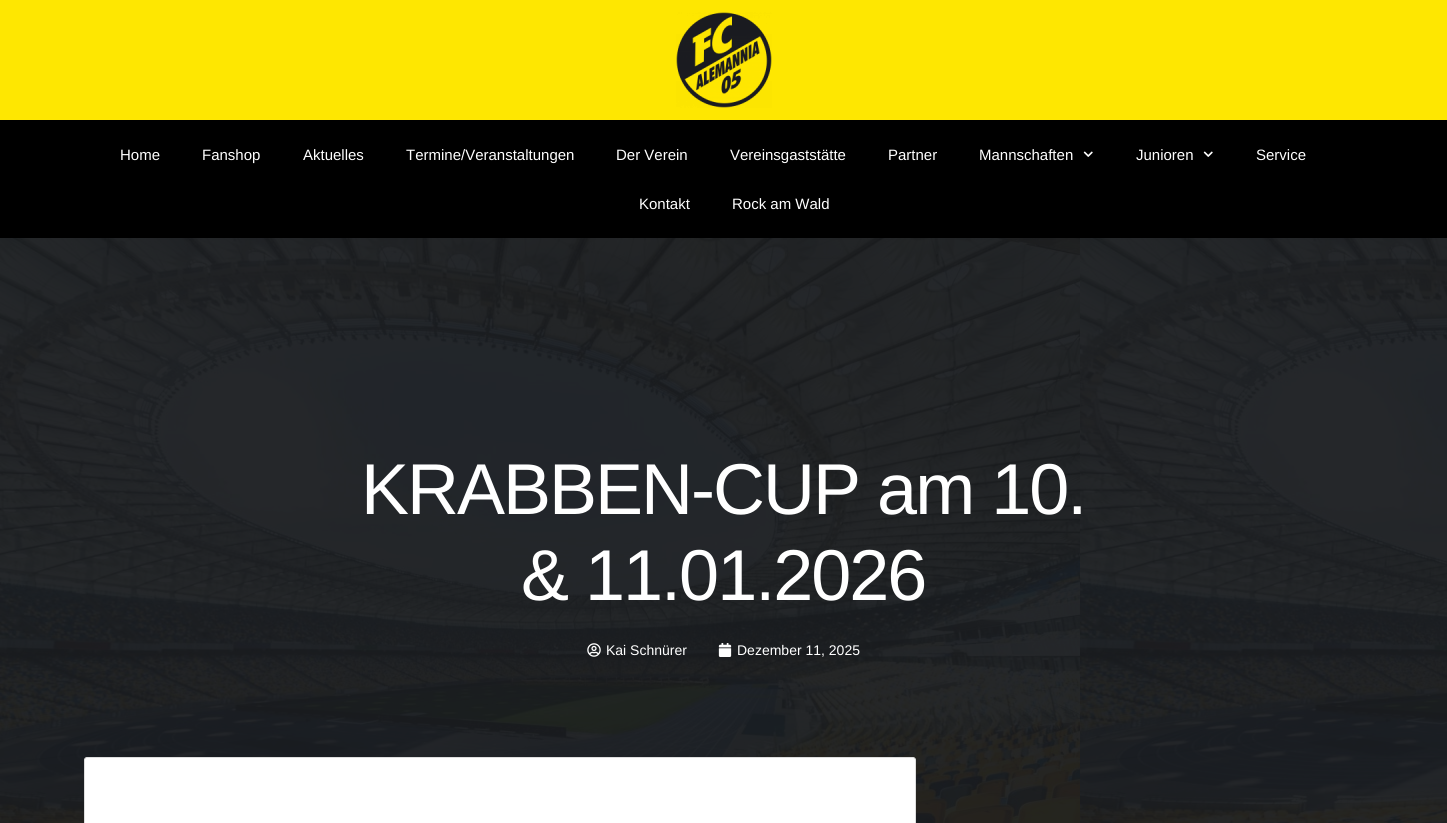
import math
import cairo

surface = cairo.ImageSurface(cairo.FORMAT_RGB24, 1447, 823)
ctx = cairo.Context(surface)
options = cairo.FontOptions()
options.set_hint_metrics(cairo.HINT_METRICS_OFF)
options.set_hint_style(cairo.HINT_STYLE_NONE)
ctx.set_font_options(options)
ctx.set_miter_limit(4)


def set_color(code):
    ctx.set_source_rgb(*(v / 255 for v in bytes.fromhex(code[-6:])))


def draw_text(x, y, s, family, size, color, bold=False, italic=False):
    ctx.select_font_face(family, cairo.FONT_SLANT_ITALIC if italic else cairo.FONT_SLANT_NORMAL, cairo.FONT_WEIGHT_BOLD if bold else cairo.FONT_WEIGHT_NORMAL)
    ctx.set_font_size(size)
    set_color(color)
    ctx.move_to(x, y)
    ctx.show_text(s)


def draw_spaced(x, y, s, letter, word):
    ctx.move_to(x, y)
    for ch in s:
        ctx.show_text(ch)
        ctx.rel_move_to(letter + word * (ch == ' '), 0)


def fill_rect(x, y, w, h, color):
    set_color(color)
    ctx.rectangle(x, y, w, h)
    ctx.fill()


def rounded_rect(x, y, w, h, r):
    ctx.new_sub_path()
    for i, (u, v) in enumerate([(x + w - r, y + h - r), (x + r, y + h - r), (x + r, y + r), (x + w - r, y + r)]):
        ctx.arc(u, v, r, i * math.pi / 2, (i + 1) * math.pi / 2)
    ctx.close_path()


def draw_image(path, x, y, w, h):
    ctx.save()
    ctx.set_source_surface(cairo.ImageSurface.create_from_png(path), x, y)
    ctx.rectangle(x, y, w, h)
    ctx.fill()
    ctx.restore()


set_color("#fee701")
ctx.paint()
draw_image("assets/img1.png", 676, 12, 96, 96)
fill_rect(0, 120, 1447, 118, "#000000")
draw_text(120, 160, "Home", "Liberation Sans", 15, "#ffffff")
draw_text(202, 160, "Fanshop", "Liberation Sans", 15, "#ffffff")
draw_text(303, 160, "Aktuelles", "Liberation Sans", 15, "#ffffff")
draw_text(406, 160, "Termine/Veranstaltungen", "Liberation Sans", 15, "#ffffff")
draw_text(616, 160, "Der Verein", "Liberation Sans", 15, "#ffffff")
draw_text(730, 160, "Vereinsgaststätte", "Liberation Sans", 15, "#ffffff")
draw_text(888, 160, "Partner", "Liberation Sans", 15, "#ffffff")
draw_text(979, 160, "Mannschaften", "Liberation Sans", 15, "#ffffff")
draw_image("assets/img2.png", 1083, 151, 10, 6)
draw_text(1136, 160, "Junioren", "Liberation Sans", 15, "#ffffff")
draw_image("assets/img2.png", 1203, 151, 10, 6)
draw_text(1256, 160, "Service", "Liberation Sans", 15, "#ffffff")
draw_text(639, 209, "Kontakt", "Liberation Sans", 15, "#ffffff")
draw_text(732, 209, "Rock am Wald", "Liberation Sans", 15, "#ffffff")
draw_image("assets/img3.png", 0, 238, 1447, 585)
ctx.set_font_size(72)
draw_spaced(361, 514, "KRABBEN-CUP am 10.", -2, 0)
draw_spaced(521, 600, "& 11.01.2026", -2, 0)
draw_image("assets/img4.png", 587, 643, 14, 14)
draw_text(606, 655, "Kai Schnürer", "Liberation Sans", 14, "#ffffff")
draw_image("assets/img5.png", 718, 643, 14, 14)
draw_text(737, 655, "Dezember 11, 2025", "Liberation Sans", 14, "#ffffff")
rounded_rect(84.5, 757.5, 831, 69, 2.5)
ctx.fill_preserve()
set_color("#dedede")
ctx.set_line_width(1)
ctx.stroke()
surface.write_to_png("output.png")
